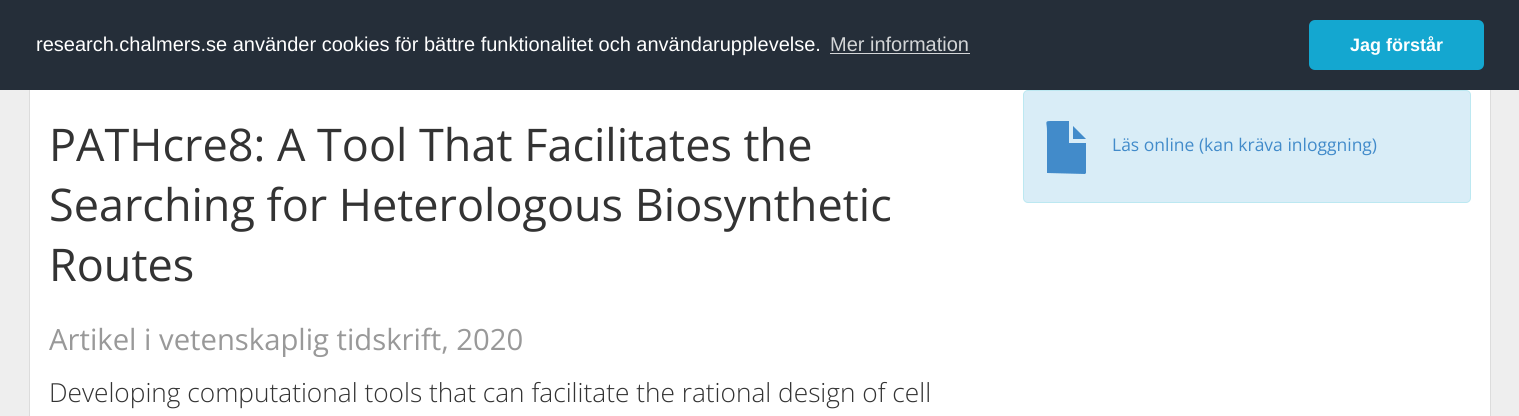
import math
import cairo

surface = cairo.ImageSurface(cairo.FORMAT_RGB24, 1519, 416)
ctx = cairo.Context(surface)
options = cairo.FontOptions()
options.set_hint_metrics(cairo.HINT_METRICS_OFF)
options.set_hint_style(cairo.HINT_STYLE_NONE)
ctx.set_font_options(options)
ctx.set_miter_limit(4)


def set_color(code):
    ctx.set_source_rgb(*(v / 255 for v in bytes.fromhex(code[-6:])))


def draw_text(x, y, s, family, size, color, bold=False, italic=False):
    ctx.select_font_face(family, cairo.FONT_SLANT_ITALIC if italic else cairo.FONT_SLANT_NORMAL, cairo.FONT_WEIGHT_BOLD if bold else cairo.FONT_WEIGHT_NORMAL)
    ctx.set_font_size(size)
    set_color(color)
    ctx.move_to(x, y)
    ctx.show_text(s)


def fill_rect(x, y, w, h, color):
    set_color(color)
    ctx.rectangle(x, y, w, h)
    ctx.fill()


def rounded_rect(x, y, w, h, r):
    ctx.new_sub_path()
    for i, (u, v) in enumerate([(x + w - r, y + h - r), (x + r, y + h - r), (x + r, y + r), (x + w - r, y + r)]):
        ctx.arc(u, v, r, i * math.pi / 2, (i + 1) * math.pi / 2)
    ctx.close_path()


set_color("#eeeeee")
ctx.paint()
fill_rect(0, 0, 1519, 90, "#252e39")
draw_text(36, 51, "research.chalmers.se använder cookies för bättre funktionalitet och användarupplevelse.", "Liberation Sans", 20, "#ffffff")
draw_text(830, 51, "Mer information", "Liberation Sans", 20, "#d3d5d7")
fill_rect(830, 53, 140, 1, "#d3d5d7")
set_color("#14a7d0")
rounded_rect(1309, 20, 175, 50, 6)
ctx.fill()
draw_text(1350, 51, "Jag förstår", "Liberation Sans", 18, "#ffffff", bold=True)
fill_rect(30, 90, 1460, 326, "#ffffff")
fill_rect(1490, 90, 1, 326, "#dcdcdc")
fill_rect(29, 90, 1, 326, "#dcdcdc")
draw_text(49, 161, "PATHcre8: A Tool That Facilitates the", "Open Sans", 45, "#333333")
draw_text(49, 221, "Searching for Heterologous Biosynthetic", "Open Sans", 45, "#333333")
draw_text(49, 281, "Routes", "Open Sans", 45, "#333333")
draw_text(49, 350, "Artikel i vetenskaplig tidskrift, 2020", "Open Sans", 29.25, "#999999")
draw_text(49, 402, "Developing computational tools that can facilitate the rational design of cell", "Open Sans Light", 26.25, "#333333")
set_color("#d9edf7")
rounded_rect(1023.5, 90.5, 447, 112, 4.5)
ctx.fill_preserve()
set_color("#bce8f1")
ctx.set_line_width(1)
ctx.stroke()
set_color("#428bca")
ctx.new_path()
ctx.move_to(1047, 173)
ctx.line_to(1047, 131)
ctx.curve_to(1047, 122, 1044, 121, 1051, 121)
ctx.line_to(1069, 121)
ctx.line_to(1069, 143)
ctx.line_to(1086, 143)
ctx.line_to(1086, 173)
ctx.line_to(1085, 174)
ctx.close_path()
ctx.move_to(1073, 139)
ctx.line_to(1073, 126)
ctx.line_to(1086, 139)
ctx.close_path()
ctx.fill()
draw_text(1112, 151, "Läs online (kan kräva inloggning)", "Open Sans", 17.5, "#428bca")
surface.write_to_png("output.png")
